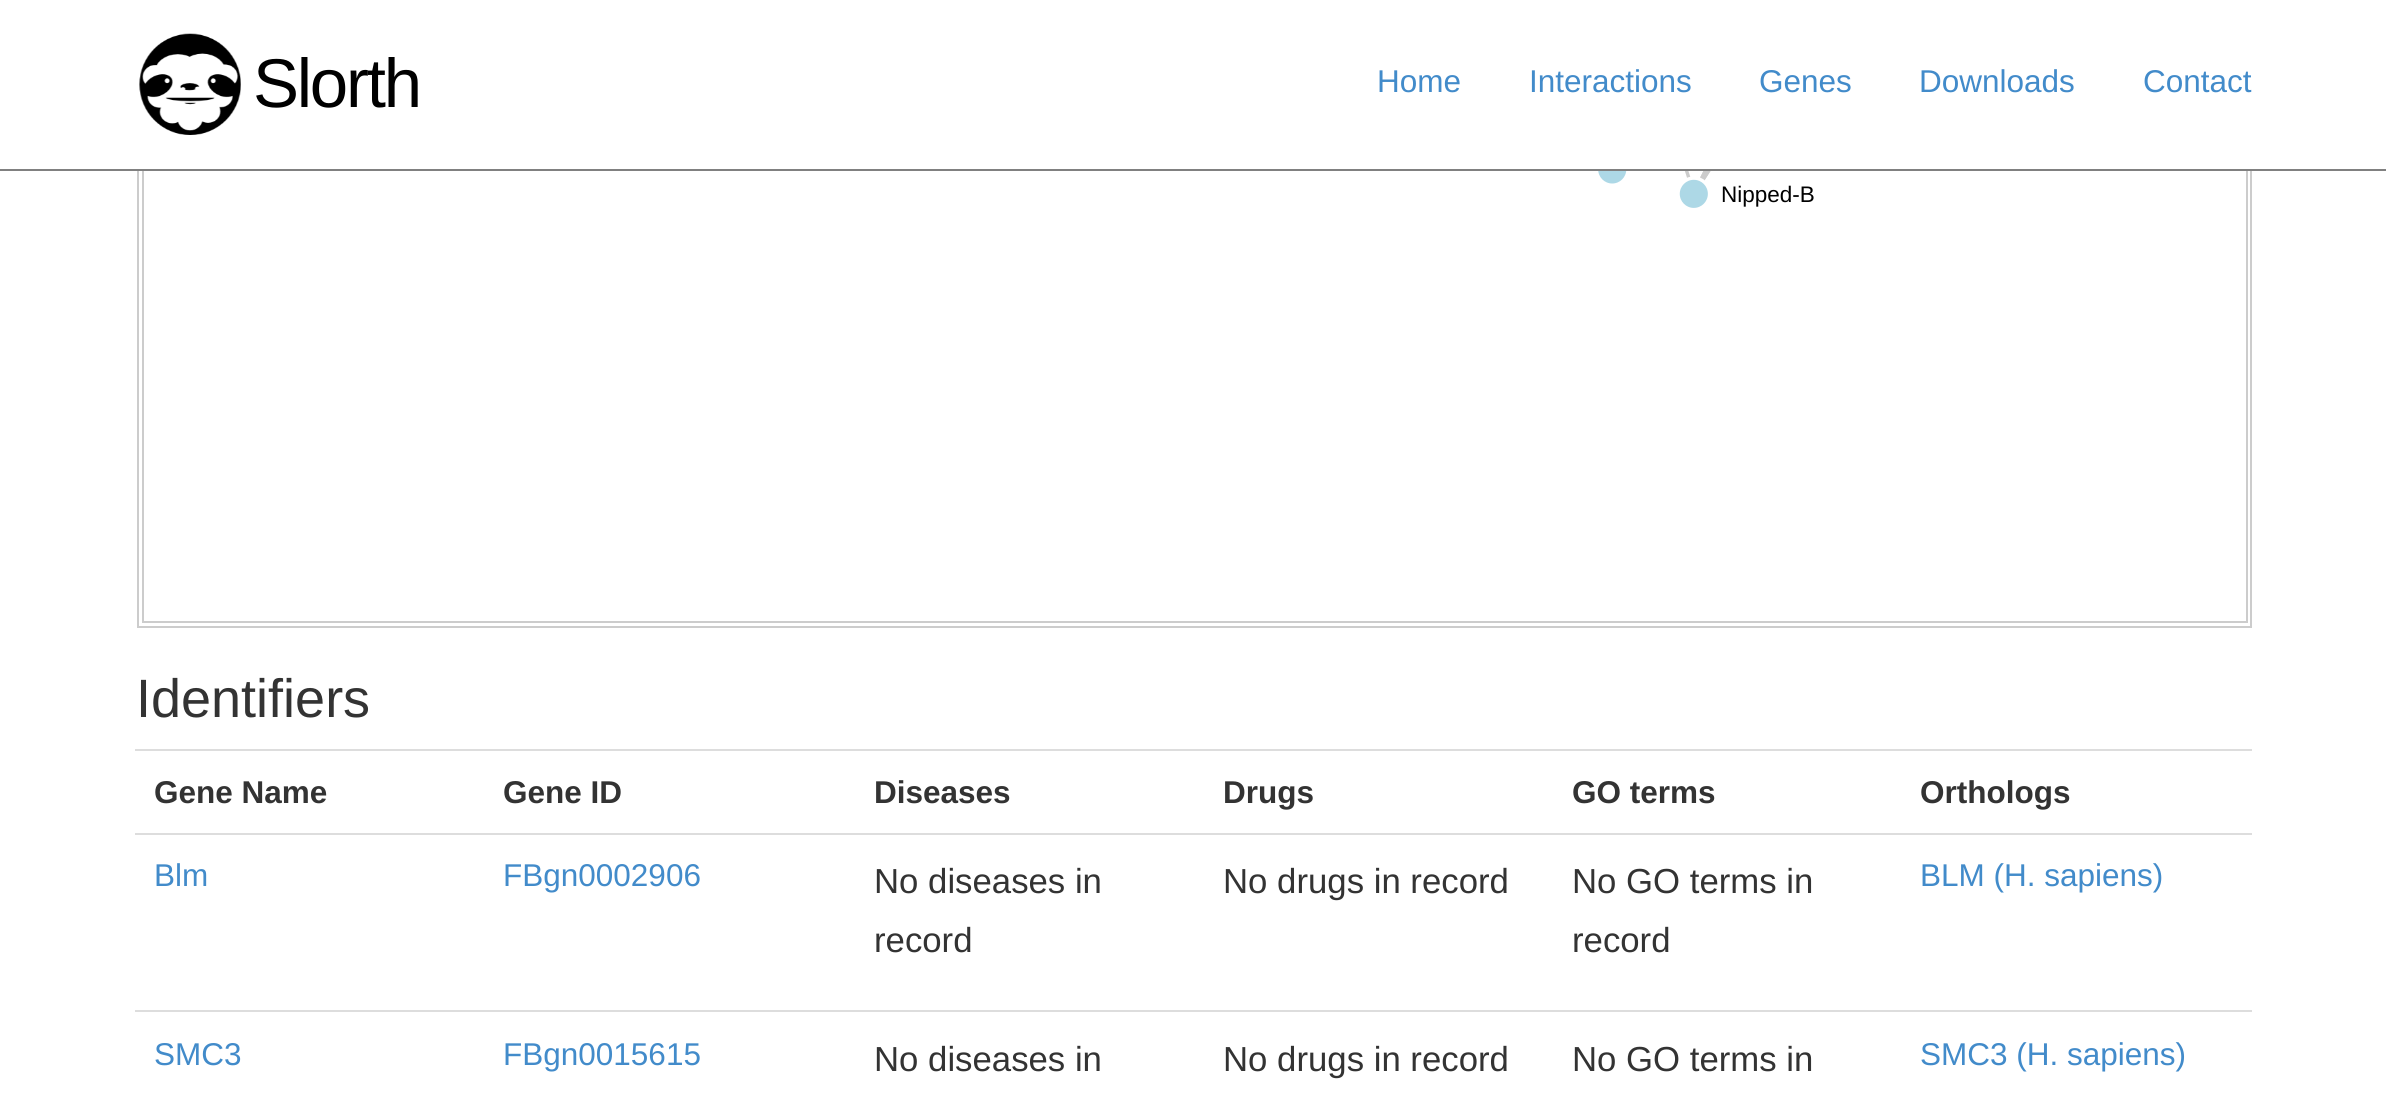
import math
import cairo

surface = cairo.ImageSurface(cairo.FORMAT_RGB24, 2386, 1099)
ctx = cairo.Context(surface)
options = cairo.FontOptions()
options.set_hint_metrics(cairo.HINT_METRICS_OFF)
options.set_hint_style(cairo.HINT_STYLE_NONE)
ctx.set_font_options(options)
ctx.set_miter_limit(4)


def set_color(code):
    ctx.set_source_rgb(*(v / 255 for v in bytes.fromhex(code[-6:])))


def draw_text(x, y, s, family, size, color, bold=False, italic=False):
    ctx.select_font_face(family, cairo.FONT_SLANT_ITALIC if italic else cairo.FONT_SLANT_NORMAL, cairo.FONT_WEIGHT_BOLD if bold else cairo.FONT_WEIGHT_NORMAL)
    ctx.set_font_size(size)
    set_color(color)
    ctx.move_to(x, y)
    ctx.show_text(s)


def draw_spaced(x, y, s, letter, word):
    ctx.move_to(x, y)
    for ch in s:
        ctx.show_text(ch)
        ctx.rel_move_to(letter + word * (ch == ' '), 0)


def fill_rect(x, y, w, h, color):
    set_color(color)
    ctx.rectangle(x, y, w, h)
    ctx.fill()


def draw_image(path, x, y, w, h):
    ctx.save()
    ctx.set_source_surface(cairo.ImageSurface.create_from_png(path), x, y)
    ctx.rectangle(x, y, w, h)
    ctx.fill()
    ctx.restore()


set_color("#ffffff")
ctx.paint()
ctx.rectangle(138, -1, 2113, 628)
set_color("#cccccc")
ctx.stroke()
ctx.rectangle(143, -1, 2104, 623)
ctx.stroke()
fill_rect(137, 0, 2115, 169, "#ffffff")
fill_rect(0, 169, 2386, 2, "#808080")
draw_image("assets/img1.png", 139, 33, 102, 102)
ctx.select_font_face("Liberation Sans")
ctx.set_font_size(69)
set_color("#000000")
draw_spaced(253, 107, "Slorth", -2.25, 0)
draw_text(1377, 92, "Home", "Liberation Sans", 31.5, "#428bca")
draw_text(1529, 92, "Interactions", "Liberation Sans", 31.5, "#428bca")
draw_text(1759, 92, "Genes", "Liberation Sans", 31.5, "#428bca")
draw_text(1919, 92, "Downloads", "Liberation Sans", 31.5, "#428bca")
draw_text(2143, 92, "Contact", "Liberation Sans", 31.5, "#428bca")
draw_image("assets/img2.png", 1594, 171, 118, 37)
draw_text(1721, 202, "Nipped-B", "Liberation Sans", 22.5, "#000000")
draw_text(136, 717, "Identifiers", "Liberation Sans", 54, "#333333")
draw_text(154, 803, "Gene Name", "Liberation Sans", 31.5, "#333333", bold=True)
draw_text(503, 803, "Gene ID", "Liberation Sans", 31.5, "#333333", bold=True)
draw_text(874, 803, "Diseases", "Liberation Sans", 31.5, "#333333", bold=True)
draw_text(1223, 803, "Drugs", "Liberation Sans", 31.5, "#333333", bold=True)
draw_text(1572, 803, "GO terms", "Liberation Sans", 31.5, "#333333", bold=True)
fill_rect(135, 749, 2117, 2, "#dddddd")
draw_text(1920, 803, "Orthologs", "Liberation Sans", 31.5, "#333333", bold=True)
draw_text(154, 886, "Blm", "Liberation Sans", 31.5, "#428bca")
draw_text(503, 886, "FBgn0002906", "Liberation Sans", 31.5, "#428bca")
draw_text(874, 893, "No diseases in", "Liberation Sans", 34.75, "#333333")
draw_text(874, 952, "record", "Liberation Sans", 34.75, "#333333")
draw_text(1223, 893, "No drugs in record", "Liberation Sans", 34.75, "#333333")
draw_text(1572, 893, "No GO terms in", "Liberation Sans", 34.75, "#333333")
draw_text(1572, 952, "record", "Liberation Sans", 34.75, "#333333")
fill_rect(135, 833, 2117, 2, "#dddddd")
draw_text(1920, 886, "BLM (H. sapiens)", "Liberation Sans", 31.5, "#428bca")
draw_text(154, 1065, "SMC3", "Liberation Sans", 31.5, "#428bca")
draw_text(503, 1065, "FBgn0015615", "Liberation Sans", 31.5, "#428bca")
draw_text(874, 1071, "No diseases in", "Liberation Sans", 34.75, "#333333")
draw_text(1223, 1071, "No drugs in record", "Liberation Sans", 34.75, "#333333")
draw_text(1572, 1071, "No GO terms in", "Liberation Sans", 34.75, "#333333")
fill_rect(135, 1010, 2117, 2, "#dddddd")
draw_text(1920, 1065, "SMC3 (H. sapiens)", "Liberation Sans", 31.5, "#428bca")
surface.write_to_png("output.png")
